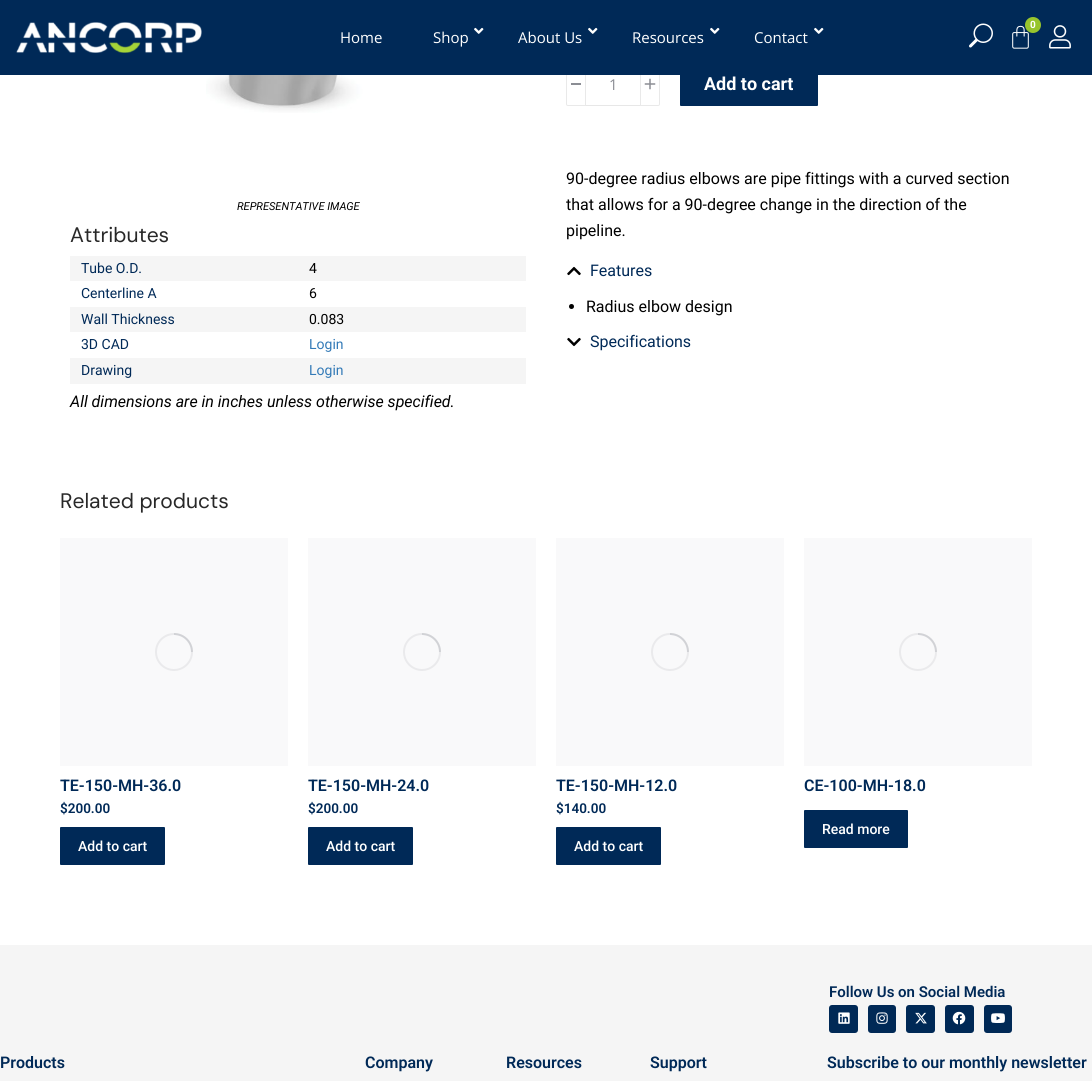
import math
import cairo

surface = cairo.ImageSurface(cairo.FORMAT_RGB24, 1092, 1081)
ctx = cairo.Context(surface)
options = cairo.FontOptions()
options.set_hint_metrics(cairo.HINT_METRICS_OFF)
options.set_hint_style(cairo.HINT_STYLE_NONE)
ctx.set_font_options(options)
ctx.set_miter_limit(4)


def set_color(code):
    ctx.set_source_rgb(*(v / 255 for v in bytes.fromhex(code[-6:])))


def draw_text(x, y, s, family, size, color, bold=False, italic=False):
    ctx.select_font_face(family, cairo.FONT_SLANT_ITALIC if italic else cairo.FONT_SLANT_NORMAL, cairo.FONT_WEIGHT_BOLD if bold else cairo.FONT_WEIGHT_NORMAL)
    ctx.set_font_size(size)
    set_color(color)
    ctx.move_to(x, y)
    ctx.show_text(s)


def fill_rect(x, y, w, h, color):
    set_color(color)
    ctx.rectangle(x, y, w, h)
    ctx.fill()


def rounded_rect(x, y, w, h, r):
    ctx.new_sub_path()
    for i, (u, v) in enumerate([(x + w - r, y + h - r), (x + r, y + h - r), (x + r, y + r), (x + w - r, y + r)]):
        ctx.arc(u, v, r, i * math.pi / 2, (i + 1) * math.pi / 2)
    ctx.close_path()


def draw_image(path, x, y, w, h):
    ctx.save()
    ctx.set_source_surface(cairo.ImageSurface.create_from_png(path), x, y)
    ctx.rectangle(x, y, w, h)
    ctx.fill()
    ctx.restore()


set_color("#ffffff")
ctx.paint()
ctx.new_path()
ctx.move_to(568, 62.5)
ctx.line_to(585.5, 62.5)
ctx.line_to(585.5, 105.5)
ctx.line_to(568, 105.5)
ctx.curve_to(567, 105.5, 566.5, 105, 566.5, 104)
ctx.line_to(566.5, 64)
ctx.curve_to(566.5, 63, 567, 62.5, 568, 62.5)
ctx.close_path()
set_color("#e9e9e9")
ctx.set_line_width(1)
ctx.stroke()
ctx.new_path()
ctx.move_to(640.5, 62.5)
ctx.line_to(658, 62.5)
ctx.curve_to(659, 62.5, 659.5, 63, 659.5, 64)
ctx.line_to(659.5, 104)
ctx.curve_to(659.5, 105, 659, 105.5, 658, 105.5)
ctx.line_to(640.5, 105.5)
ctx.close_path()
ctx.stroke()
set_color("#002957")
rounded_rect(680, 62, 138, 44, 1)
ctx.fill()
fill_rect(0, 0, 1092, 75, "#002957")
draw_image("assets/img1.png", 16, 22, 186, 31)
draw_text(340, 43, "Home", "Open Sans", 15, "#ffffff")
draw_text(433, 43, "Shop", "Open Sans", 15, "#ffffff")
draw_image("assets/img2.png", 474, 27, 10, 7)
draw_text(518, 43, "About Us", "Open Sans", 15, "#ffffff")
draw_image("assets/img2.png", 588, 27, 10, 7)
draw_image("assets/img2.png", 710, 27, 10, 7)
draw_text(632, 43, "Resources", "Open Sans", 15, "#ffffff")
draw_image("assets/img2.png", 814, 27, 10, 7)
draw_text(754, 43, "Contact", "Open Sans", 15, "#ffffff")
draw_image("assets/img3.png", 969, 23, 24, 25)
draw_image("assets/img4.png", 1012, 25, 17, 24)
set_color("#98c52d")
ctx.arc(1033, 25, 8, 0, 2 * math.pi)
ctx.fill()
draw_text(1030, 28, "0", "Roboto", 10, "#ffffff", bold=True)
draw_image("assets/img5.png", 1049, 25, 22, 24)
draw_image("assets/img6.png", 206, 75, 240, 38)
draw_text(237, 210, "REPRESENTATIVE IMAGE", "Roboto", 11, "#000000", italic=True)
draw_text(70, 242, "Attributes", "DM Sans", 21, "#282828")
fill_rect(70, 256, 456, 25, "#f5f5f5")
draw_text(81, 273, "Tube O.D.", "Roboto", 14, "#002957")
draw_text(309, 273, "4", "Roboto", 14, "#000000")
draw_text(81, 298, "Centerline A", "Roboto", 14, "#002957")
draw_text(309, 298, "6", "Roboto", 14, "#000000")
fill_rect(70, 307, 456, 25, "#f5f5f5")
draw_text(81, 324, "Wall Thickness", "Roboto", 14, "#002957")
draw_text(309, 324, "0.083", "Roboto", 14, "#000000")
draw_text(81, 349, "3D CAD", "Roboto", 14, "#002957")
draw_text(309, 349, "Login", "Roboto", 14, "#337ab7")
fill_rect(70, 358, 456, 26, "#f5f5f5")
draw_text(81, 375, "Drawing", "Roboto", 14, "#002957")
draw_text(309, 375, "Login", "Roboto", 14, "#337ab7")
draw_text(70, 407, "All dimensions are in inches unless otherwise specified.", "Roboto", 16, "#000000", italic=True)
fill_rect(571, 83, 10, 2, "#8b8d94")
fill_rect(586, 105, 54, 1, "#e7e7e7")
draw_text(609, 90, "1", "Open Sans", 15, "#8b8d94")
draw_image("assets/img7.png", 644, 78, 12, 12)
draw_text(704, 90, "Add to cart", "Roboto", 18, "#ffffff", bold=True)
draw_text(566, 184, "90-degree radius elbows are pipe fittings with a curved section", "Roboto", 16, "#000000")
draw_text(566, 210, "that allows for a 90-degree change in the direction of the", "Roboto", 16, "#000000")
draw_text(566, 236, "pipeline.", "Roboto", 16, "#000000")
draw_image("assets/img8.png", 567, 266, 14, 10)
draw_text(590, 276, "Features", "Roboto", 16, "#002957")
set_color("#000000")
ctx.new_path()
ctx.arc(571.5, 306.5, 2.5, 0, 2 * math.pi)
ctx.fill()
draw_text(586, 312, "Radius elbow design", "Roboto", 16, "#000000")
draw_image("assets/img9.png", 567, 337, 14, 10)
draw_text(590, 347, "Specifications", "Roboto", 16, "#002957")
draw_text(60, 508, "Related products", "DM Sans", 21, "#282828")
fill_rect(60, 538, 228, 228, "#f9f9fa")
ctx.new_path()
ctx.arc(174, 652, 18, 0, 2 * math.pi)
set_color("#eaeaec")
ctx.set_line_width(2)
ctx.stroke()
ctx.new_path()
ctx.move_to(192, 652)
ctx.curve_to(192, 642, 184, 634, 174, 634)
ctx.set_source_rgba(0.545, 0.553, 0.58, 0.25)
ctx.stroke()
draw_text(60, 791, "TE-150-MH-36.0", "Roboto SemiBold", 16, "#002957")
draw_text(60, 813, "$200.00", "Roboto SemiBold", 13.5, "#002957")
rounded_rect(60, 827, 105, 38, 1)
ctx.fill()
draw_text(78, 851, "Add to cart", "Roboto Medium", 14, "#ffffff")
fill_rect(308, 538, 228, 228, "#f9f9fa")
ctx.new_path()
ctx.arc(422, 652, 18, 0, 2 * math.pi)
set_color("#eaeaec")
ctx.stroke()
ctx.new_path()
ctx.move_to(440, 652)
ctx.curve_to(440, 642, 432, 634, 422, 634)
ctx.set_source_rgba(0.545, 0.553, 0.58, 0.25)
ctx.stroke()
draw_text(308, 791, "TE-150-MH-24.0", "Roboto SemiBold", 16, "#002957")
draw_text(308, 813, "$200.00", "Roboto SemiBold", 13.5, "#002957")
rounded_rect(308, 827, 105, 38, 1)
ctx.fill()
draw_text(326, 851, "Add to cart", "Roboto Medium", 14, "#ffffff")
fill_rect(556, 538, 228, 228, "#f9f9fa")
ctx.new_path()
ctx.arc(670, 652, 18, 0, 2 * math.pi)
set_color("#eaeaec")
ctx.stroke()
ctx.new_path()
ctx.move_to(688, 652)
ctx.curve_to(688, 642, 680, 634, 670, 634)
ctx.set_source_rgba(0.545, 0.553, 0.58, 0.25)
ctx.stroke()
draw_text(556, 791, "TE-150-MH-12.0", "Roboto SemiBold", 16, "#002957")
draw_text(556, 813, "$140.00", "Roboto SemiBold", 13.5, "#002957")
rounded_rect(556, 827, 105, 38, 1)
ctx.fill()
draw_text(574, 851, "Add to cart", "Roboto Medium", 14, "#ffffff")
fill_rect(804, 538, 228, 228, "#f9f9fa")
ctx.new_path()
ctx.arc(918, 652, 18, 0, 2 * math.pi)
set_color("#eaeaec")
ctx.stroke()
ctx.new_path()
ctx.move_to(936, 652)
ctx.curve_to(936, 642, 928, 634, 918, 634)
ctx.set_source_rgba(0.545, 0.553, 0.58, 0.25)
ctx.stroke()
draw_text(804, 791, "CE-100-MH-18.0", "Roboto SemiBold", 16, "#002957")
rounded_rect(804, 810, 104, 38, 1)
ctx.fill()
draw_text(822, 834, "Read more", "Roboto Medium", 14, "#ffffff")
fill_rect(0, 945, 1092, 136, "#f5f5f5")
draw_text(829, 997, "Follow Us on Social Media", "Roboto SemiBold", 15, "#002957")
set_color("#002956")
rounded_rect(829, 1005, 29, 28, 3)
ctx.fill()
draw_image("assets/img10.png", 838, 1012, 12, 12)
rounded_rect(868, 1005, 28, 28, 3)
ctx.fill()
draw_image("assets/img11.png", 876, 1012, 12, 12)
rounded_rect(906, 1005, 29, 28, 3)
ctx.fill()
draw_image("assets/img12.png", 915, 1012, 12, 12)
rounded_rect(945, 1005, 29, 28, 3)
ctx.fill()
draw_image("assets/img13.png", 952, 1011, 14, 14)
rounded_rect(984, 1005, 28, 28, 3)
ctx.fill()
draw_image("assets/img14.png", 991, 1013, 14, 10)
draw_text(0, 1068, "Products", "Roboto SemiBold", 16, "#002957")
draw_text(365, 1068, "Company", "Roboto SemiBold", 16, "#002957")
draw_text(506, 1068, "Resources", "Roboto SemiBold", 16, "#002957")
draw_text(650, 1068, "Support", "Roboto SemiBold", 16, "#002957")
draw_text(827, 1068, "Subscribe to our monthly newsletter", "Roboto SemiBold", 16, "#002957")
surface.write_to_png("output.png")
